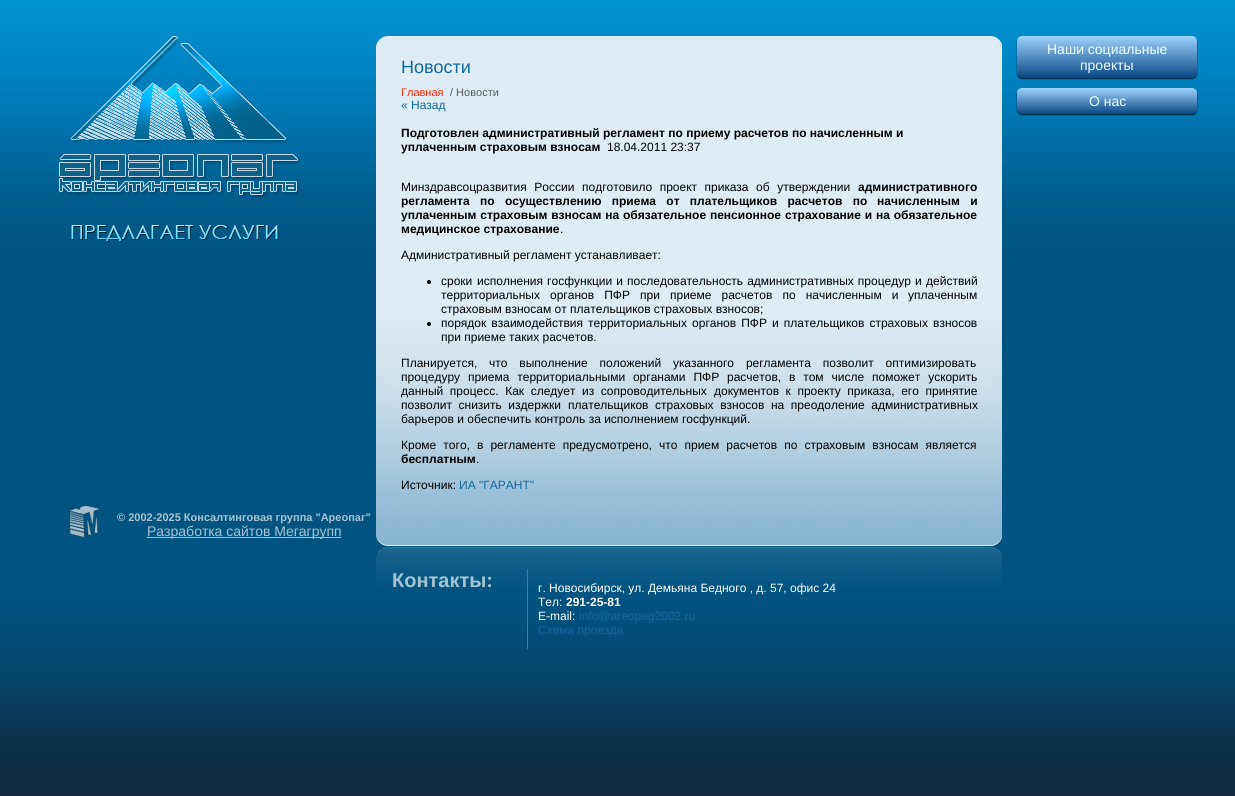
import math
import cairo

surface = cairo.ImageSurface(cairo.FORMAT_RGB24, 1235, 796)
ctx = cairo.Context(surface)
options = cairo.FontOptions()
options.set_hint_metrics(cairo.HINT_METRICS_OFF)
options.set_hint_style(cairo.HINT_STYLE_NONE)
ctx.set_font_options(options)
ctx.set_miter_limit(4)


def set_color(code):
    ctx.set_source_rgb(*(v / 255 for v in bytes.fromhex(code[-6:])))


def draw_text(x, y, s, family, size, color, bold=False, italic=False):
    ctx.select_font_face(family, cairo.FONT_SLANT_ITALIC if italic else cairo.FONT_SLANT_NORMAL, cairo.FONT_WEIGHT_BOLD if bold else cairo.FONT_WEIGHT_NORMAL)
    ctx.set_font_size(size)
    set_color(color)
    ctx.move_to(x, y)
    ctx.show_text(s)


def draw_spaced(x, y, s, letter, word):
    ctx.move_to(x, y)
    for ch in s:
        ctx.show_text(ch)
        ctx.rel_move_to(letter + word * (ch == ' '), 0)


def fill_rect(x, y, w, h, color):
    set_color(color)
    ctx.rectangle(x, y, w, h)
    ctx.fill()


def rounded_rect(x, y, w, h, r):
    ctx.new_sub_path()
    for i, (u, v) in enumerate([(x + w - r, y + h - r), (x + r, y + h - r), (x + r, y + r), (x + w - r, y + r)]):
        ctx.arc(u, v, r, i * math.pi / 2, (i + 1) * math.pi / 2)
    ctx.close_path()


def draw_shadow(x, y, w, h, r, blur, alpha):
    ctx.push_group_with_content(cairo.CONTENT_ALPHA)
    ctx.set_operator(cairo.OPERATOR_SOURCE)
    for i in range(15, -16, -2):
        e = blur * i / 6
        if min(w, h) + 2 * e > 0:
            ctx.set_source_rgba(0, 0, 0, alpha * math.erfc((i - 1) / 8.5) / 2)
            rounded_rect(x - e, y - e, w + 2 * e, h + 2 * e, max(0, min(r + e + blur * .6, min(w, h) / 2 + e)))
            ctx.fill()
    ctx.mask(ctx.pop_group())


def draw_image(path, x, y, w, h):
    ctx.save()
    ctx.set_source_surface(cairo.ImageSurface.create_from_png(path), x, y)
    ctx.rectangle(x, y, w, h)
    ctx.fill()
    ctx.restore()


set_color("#ffffff")
ctx.paint()
draw_image("assets/img1.png", 0, 0, 1235, 796)
draw_image("assets/img2.png", 59, 36, 241, 206)
fill_rect(376, 52, 626, 267, "#deecf5")
draw_image("assets/img3.png", 376, 319, 626, 187)
draw_image("assets/img4.png", 376, 36, 626, 16)
draw_text(401, 73, "Новости", "Liberation Sans", 18, "#12689d")
draw_text(401, 96, "Главная", "Liberation Sans", 11, "#ff2400")
draw_text(450, 96, "/ Новости", "Liberation Sans", 11, "#5a5a5a")
draw_text(401, 109, "« Назад", "Liberation Sans", 12, "#12689d")
draw_text(401, 137, "Подготовлен административный регламент по приему расчетов по начисленным и", "Liberation Sans", 12, "#000000", bold=True)
draw_text(401, 151, "уплаченным страховым взносам", "Liberation Sans", 12, "#000000", bold=True)
draw_text(607, 151, "18.04.2011 23:37", "Liberation Sans", 12, "#000000")
draw_spaced(401, 191, "Минздравсоцразвития России подготовило проект приказа об утверждении", 0, 4.25)
draw_text(858, 191, "административного", "Liberation Sans", 12, "#000000", bold=True)
draw_spaced(401, 205, "регламента по осуществлению приема от плательщиков расчетов по", 0, 7)
draw_spaced(877, 205, "начисленным и", 0, 7)
draw_spaced(401, 219, "уплаченным страховым взносам на обязательное пенсионное", 0, 0.5)
draw_spaced(785, 219, "страхование и на обязательное", 0, 0.5)
draw_text(401, 233, "медицинское страхование", "Liberation Sans", 12, "#000000", bold=True)
draw_text(560, 233, ".", "Liberation Sans", 12, "#000000")
draw_text(401, 259, "Административный регламент устанавливает:", "Liberation Sans", 12, "#000000")
ctx.new_path()
ctx.arc(429, 282, 2, 0, 2 * math.pi)
ctx.fill()
draw_text(441, 285, "сроки", "Liberation Sans", 12, "#000000")
draw_spaced(477, 285, "исполнения госфункции и последовательность административных процедур и", 0, 0.75)
draw_text(926, 285, "действий", "Liberation Sans", 12, "#000000")
draw_spaced(441, 299, "территориальных органов ПФР при приеме расчетов по начисленным и", 0, 6.75)
draw_text(908, 299, "уплаченным", "Liberation Sans", 12, "#000000")
draw_text(441, 313, "страховым взносам от плательщиков страховых взносов;", "Liberation Sans", 12, "#000000")
ctx.new_path()
ctx.arc(429, 324, 2, 0, 2 * math.pi)
ctx.fill()
draw_spaced(441, 327, "порядок взаимодействия территориальных органов ПФР и плательщиков страховых взносов", 0, 1.75)
draw_text(441, 341, "при приеме таких расчетов.", "Liberation Sans", 12, "#000000")
draw_text(401, 367, "Планируется,", "Liberation Sans", 12, "#000000")
draw_spaced(489, 367, "что выполнение положений указанного регламента позволит оптимизировать", 0, 8.5)
draw_spaced(401, 381, "процедуру приема территориальными органами ПФР расчетов, в том числе", 0, 4.5)
draw_spaced(872, 381, "поможет ускорить", 0, 4.5)
draw_spaced(401, 395, "данный процесс. Как следует из сопроводительных", 0, 3.25)
draw_spaced(714, 395, "документов к проекту приказа, его принятие", 0, 3.25)
draw_spaced(401, 409, "позволит снизить издержки", 0, 3.25)
draw_spaced(568, 409, "плательщиков страховых взносов на преодоление административных", 0, 3.25)
draw_text(401, 423, "барьеров и обеспечить контроль за исполнением госфункций.", "Liberation Sans", 12, "#000000")
draw_spaced(401, 449, "Кроме того, в регламенте предусмотрено, что прием расчетов по страховым взносам является", 0, 3.75)
draw_text(401, 463, "бесплатным", "Liberation Sans", 12, "#000000", bold=True)
draw_text(476, 463, ".", "Liberation Sans", 12, "#000000")
draw_text(401, 489, "Источник:", "Liberation Sans", 12, "#000000")
draw_text(459, 489, "ИА \"ГАРАНТ\"", "Liberation Sans", 12, "#12689d")
draw_image("assets/img5.png", 376, 506, 626, 79)
draw_image("assets/img6.png", 70, 506, 30, 31)
draw_text(117, 521, "© 2002-2025 Консалтинговая группа \"Ареопаг\"", "Liberation Sans", 11, "#a6c3d3", bold=True)
fill_rect(147, 537, 194, 1, "#a6c3d3")
draw_text(147, 536, "Разработка сайтов Мегагрупп", "Liberation Sans", 14, "#a6c3d3")
draw_text(392, 587, "Контакты:", "Liberation Sans", 20, "#a6c3d3", bold=True)
fill_rect(527, 569, 1, 80, "#597486")
draw_text(538, 592, "г. Новосибирск, ул. Демьяна Бедного , д. 57, офис 24", "Liberation Sans", 12, "#ffffff")
draw_text(538, 606, "Тел:", "Liberation Sans", 12, "#ffffff")
draw_text(566, 606, "291-25-81", "Liberation Sans", 12, "#ffffff", bold=True)
draw_text(538, 620, "E-mail:", "Liberation Sans", 12, "#ffffff")
draw_text(579, 620, "info@areopag2002.ru", "Liberation Sans", 12, "#12689d")
draw_text(538, 634, "Схема проезда", "Liberation Sans", 12, "#12689d")
set_color("#042544")
draw_shadow(1017, 37, 180, 42, 5, 0.5, 1)
gradient = cairo.LinearGradient(1107, 36, 1107, 78)
gradient.add_color_stop_rgba(0, 0.62, 0.827, 0.992, 1)
gradient.add_color_stop_rgba(1, 0.035, 0.278, 0.518, 1)
ctx.set_source(gradient)
rounded_rect(1017, 36, 180, 42, 5)
ctx.fill()
draw_text(1047, 54, "Наши социальные", "Liberation Sans", 14, "#edffff")
draw_text(1080, 70, "проекты", "Liberation Sans", 14, "#edffff")
set_color("#042544")
draw_shadow(1017, 89, 180, 26, 5, 0.5, 1)
gradient = cairo.LinearGradient(1107, 88, 1107, 114)
gradient.add_color_stop_rgba(0, 0.62, 0.827, 0.992, 1)
gradient.add_color_stop_rgba(1, 0.035, 0.278, 0.518, 1)
ctx.set_source(gradient)
rounded_rect(1017, 88, 180, 26, 5)
ctx.fill()
draw_text(1089, 106, "О нас", "Liberation Sans", 14, "#edffff")
surface.write_to_png("output.png")
